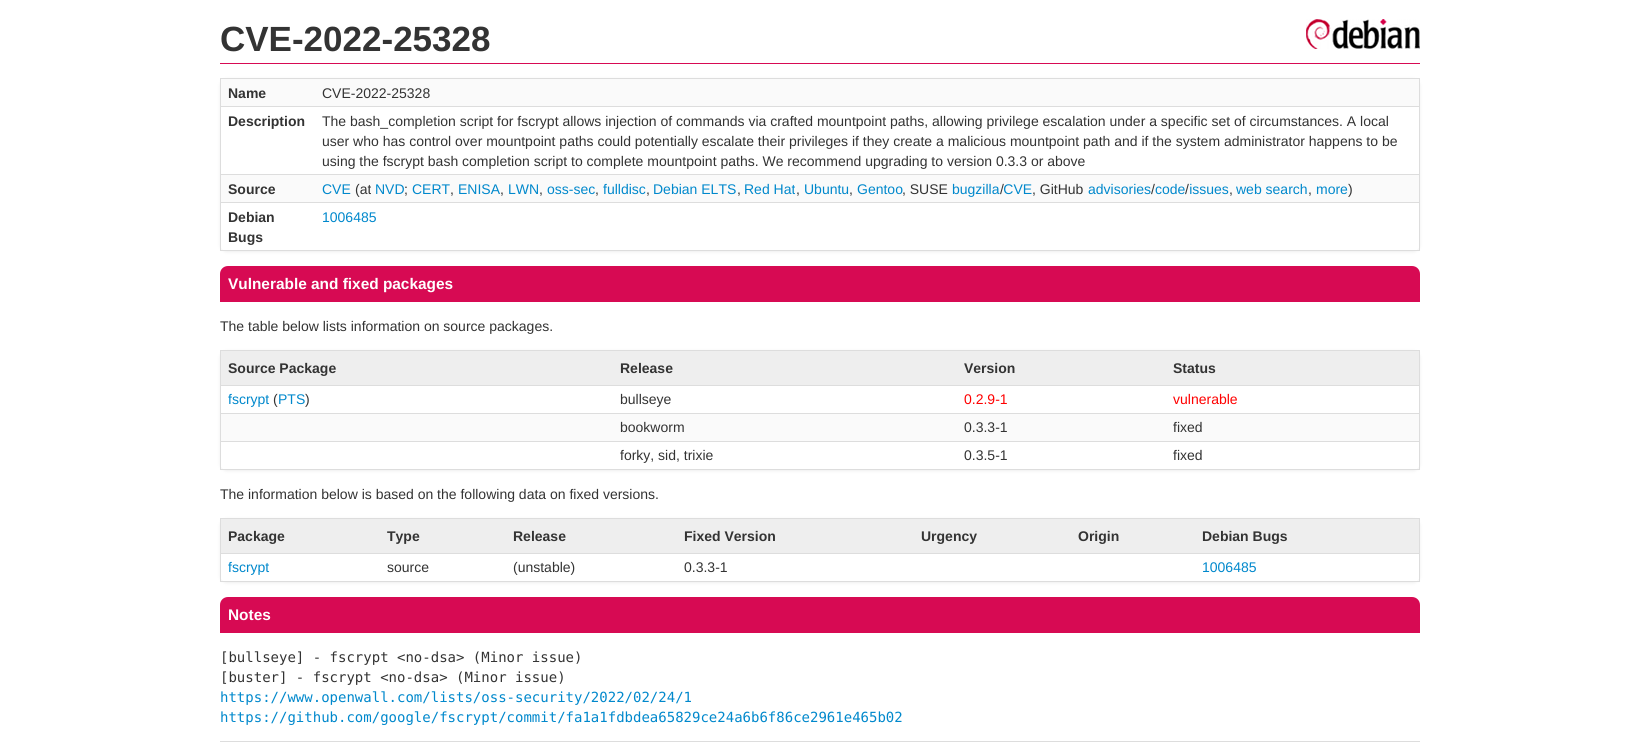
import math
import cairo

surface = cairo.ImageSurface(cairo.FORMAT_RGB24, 1640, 754)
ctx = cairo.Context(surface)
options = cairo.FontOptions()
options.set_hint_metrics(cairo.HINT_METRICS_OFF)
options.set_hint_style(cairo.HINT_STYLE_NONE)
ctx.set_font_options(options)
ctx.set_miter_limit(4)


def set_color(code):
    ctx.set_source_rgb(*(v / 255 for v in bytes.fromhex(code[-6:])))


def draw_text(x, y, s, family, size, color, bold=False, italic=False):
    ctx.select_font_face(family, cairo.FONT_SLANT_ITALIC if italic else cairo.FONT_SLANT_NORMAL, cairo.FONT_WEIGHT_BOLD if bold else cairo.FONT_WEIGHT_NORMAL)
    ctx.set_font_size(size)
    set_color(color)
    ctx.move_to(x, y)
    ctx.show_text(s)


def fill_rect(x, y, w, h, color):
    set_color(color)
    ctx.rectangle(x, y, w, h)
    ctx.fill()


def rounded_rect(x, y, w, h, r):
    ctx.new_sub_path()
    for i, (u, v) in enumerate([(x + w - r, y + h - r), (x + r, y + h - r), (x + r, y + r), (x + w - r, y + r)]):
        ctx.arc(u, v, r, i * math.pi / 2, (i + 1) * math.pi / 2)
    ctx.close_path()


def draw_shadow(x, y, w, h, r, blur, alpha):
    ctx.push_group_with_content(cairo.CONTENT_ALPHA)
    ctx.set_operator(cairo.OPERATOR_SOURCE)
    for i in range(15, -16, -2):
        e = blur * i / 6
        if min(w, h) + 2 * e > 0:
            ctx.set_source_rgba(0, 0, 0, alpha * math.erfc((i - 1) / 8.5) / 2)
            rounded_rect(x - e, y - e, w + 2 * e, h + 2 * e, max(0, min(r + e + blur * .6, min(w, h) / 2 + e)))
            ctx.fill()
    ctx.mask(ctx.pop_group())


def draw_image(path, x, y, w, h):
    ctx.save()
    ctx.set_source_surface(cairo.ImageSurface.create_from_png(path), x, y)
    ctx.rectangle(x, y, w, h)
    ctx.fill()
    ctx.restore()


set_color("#ffffff")
ctx.paint()
draw_image("assets/img1.png", 1306, 19, 114, 30)
fill_rect(220, 63, 1200, 1, "#d70a53")
draw_text(220, 51, "CVE-2022-25328", "Liberation Sans", 35, "#333333", bold=True)
ctx.save()
ctx.set_fill_rule(cairo.FILL_RULE_EVEN_ODD)
ctx.new_path()
ctx.move_to(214, 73)
ctx.line_to(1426, 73)
ctx.line_to(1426, 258)
ctx.line_to(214, 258)
ctx.close_path()
ctx.move_to(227, 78)
ctx.line_to(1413, 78)
ctx.curve_to(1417, 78, 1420, 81, 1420, 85)
ctx.line_to(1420, 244)
ctx.curve_to(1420, 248, 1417, 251, 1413, 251)
ctx.line_to(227, 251)
ctx.curve_to(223, 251, 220, 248, 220, 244)
ctx.line_to(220, 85)
ctx.curve_to(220, 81, 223, 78, 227, 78)
ctx.close_path()
ctx.clip()
set_color("#eeeeee")
draw_shadow(220, 79, 1200, 173, 7, 1.5, 1)
ctx.restore()
fill_rect(220, 78, 1200, 1, "#dddddd")
fill_rect(1419, 78, 1, 173, "#dddddd")
fill_rect(220, 250, 1200, 1, "#dddddd")
fill_rect(220, 78, 1, 173, "#dddddd")
fill_rect(221, 79, 1198, 27, "#fafafa")
draw_text(228, 98, "Name", "Liberation Sans", 14, "#333333", bold=True)
fill_rect(220, 106, 1200, 1, "#dddddd")
draw_text(322, 98, "CVE-2022-25328", "Liberation Sans", 14, "#333333")
draw_text(228, 126, "Description", "Liberation Sans", 14, "#333333", bold=True)
fill_rect(220, 174, 1200, 1, "#dddddd")
draw_text(322, 126, "The bash_completion script for fscrypt allows injection of commands via crafted mountpoint paths, allowing privilege escalation under a specific set of circumstances. A local", "Liberation Sans", 14, "#333333")
draw_text(322, 146, "user who has control over mountpoint paths could potentially escalate their privileges if they create a malicious mountpoint path and if the system administrator happens to be", "Liberation Sans", 14, "#333333")
draw_text(322, 166, "using the fscrypt bash completion script to complete mountpoint paths. We recommend upgrading to version 0.3.3 or above", "Liberation Sans", 14, "#333333")
fill_rect(221, 175, 1198, 27, "#fafafa")
draw_text(228, 194, "Source", "Liberation Sans", 14, "#333333", bold=True)
fill_rect(220, 202, 1200, 1, "#dddddd")
draw_text(355, 194, "(at", "Liberation Sans", 14, "#333333")
draw_text(603, 194, "fulldisc", "Liberation Sans", 14, "#0088cc")
draw_text(653, 194, "Debian ELTS", "Liberation Sans", 14, "#0088cc")
draw_text(744, 194, "Red Hat", "Liberation Sans", 14, "#0088cc")
draw_text(804, 194, "Ubuntu", "Liberation Sans", 14, "#0088cc")
draw_text(952, 194, "bugzilla CVE", "Liberation Sans", 14, "#0088cc")
draw_text(1000, 194, "/", "Liberation Sans", 14, "#333333")
draw_text(1032, 194, ", GitHub", "Liberation Sans", 14, "#333333")
draw_text(1088, 194, "advisories code issues", "Liberation Sans", 14, "#0088cc")
draw_text(322, 194, "CVE", "Liberation Sans", 14, "#0088cc")
draw_text(375, 194, "NVD", "Liberation Sans", 14, "#0088cc")
draw_text(404, 194, ";", "Liberation Sans", 14, "#333333")
draw_text(412, 194, "CERT", "Liberation Sans", 14, "#0088cc")
draw_text(450, 194, ",", "Liberation Sans", 14, "#333333")
draw_text(458, 194, "ENISA", "Liberation Sans", 14, "#0088cc")
draw_text(500, 194, ",", "Liberation Sans", 14, "#333333")
draw_text(508, 194, "LWN", "Liberation Sans", 14, "#0088cc")
draw_text(539, 194, ",", "Liberation Sans", 14, "#333333")
draw_text(547, 194, "oss-sec", "Liberation Sans", 14, "#0088cc")
draw_text(595, 194, ",", "Liberation Sans", 14, "#333333")
draw_text(646, 194, ",", "Liberation Sans", 14, "#333333")
draw_text(737, 194, ",", "Liberation Sans", 14, "#333333")
draw_text(796, 194, ",", "Liberation Sans", 14, "#333333")
draw_text(849, 194, ",", "Liberation Sans", 14, "#333333")
draw_text(857, 194, "Gentoo", "Liberation Sans", 14, "#0088cc")
draw_text(902, 194, ", SUSE", "Liberation Sans", 14, "#333333")
draw_text(1151, 194, "/", "Liberation Sans", 14, "#333333")
draw_text(1185, 194, "/", "Liberation Sans", 14, "#333333")
draw_text(1229, 194, ",", "Liberation Sans", 14, "#333333")
draw_text(1236, 194, "web search", "Liberation Sans", 14, "#0088cc")
draw_text(1308, 194, ",", "Liberation Sans", 14, "#333333")
draw_text(1316, 194, "more", "Liberation Sans", 14, "#0088cc")
draw_text(1348, 194, ")", "Liberation Sans", 14, "#333333")
draw_text(228, 222, "Debian", "Liberation Sans", 14, "#333333", bold=True)
draw_text(228, 242, "Bugs", "Liberation Sans", 14, "#333333", bold=True)
draw_text(322, 222, "1006485", "Liberation Sans", 14, "#0088cc")
set_color("#d70a53")
ctx.new_path()
ctx.move_to(228, 266)
ctx.line_to(1412, 266)
ctx.curve_to(1416.5, 266, 1420, 269.5, 1420, 274)
ctx.line_to(1420, 302)
ctx.line_to(220, 302)
ctx.line_to(220, 274)
ctx.curve_to(220, 269.5, 223.5, 266, 228, 266)
ctx.close_path()
ctx.fill()
draw_text(228, 289, "Vulnerable and fixed packages", "Liberation Sans", 15.4, "#ffffff", bold=True)
draw_text(220, 331, "The table below lists information on source packages.", "Liberation Sans", 14, "#333333")
ctx.save()
ctx.set_fill_rule(cairo.FILL_RULE_EVEN_ODD)
ctx.new_path()
ctx.move_to(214, 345)
ctx.line_to(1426, 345)
ctx.line_to(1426, 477)
ctx.line_to(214, 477)
ctx.close_path()
ctx.move_to(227, 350)
ctx.line_to(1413, 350)
ctx.curve_to(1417, 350, 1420, 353, 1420, 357)
ctx.line_to(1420, 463)
ctx.curve_to(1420, 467, 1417, 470, 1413, 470)
ctx.line_to(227, 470)
ctx.curve_to(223, 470, 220, 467, 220, 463)
ctx.line_to(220, 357)
ctx.curve_to(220, 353, 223, 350, 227, 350)
ctx.close_path()
ctx.clip()
set_color("#eeeeee")
draw_shadow(220, 351, 1200, 120, 7, 1.5, 1)
ctx.restore()
fill_rect(220, 350, 1200, 1, "#dddddd")
fill_rect(1419, 350, 1, 120, "#dddddd")
fill_rect(220, 469, 1200, 1, "#dddddd")
fill_rect(220, 350, 1, 120, "#dddddd")
fill_rect(221, 351, 1198, 34, "#eeeeee")
draw_text(228, 373, "Source Package", "Liberation Sans", 14, "#333333", bold=True)
draw_text(620, 373, "Release", "Liberation Sans", 14, "#333333", bold=True)
draw_text(964, 373, "Version", "Liberation Sans", 14, "#333333", bold=True)
fill_rect(220, 385, 1200, 1, "#dddddd")
draw_text(1173, 373, "Status", "Liberation Sans", 14, "#333333", bold=True)
draw_text(228, 404, "fscrypt", "Liberation Sans", 14, "#0088cc")
draw_text(273, 404, "(", "Liberation Sans", 14, "#333333")
draw_text(278, 404, "PTS", "Liberation Sans", 14, "#0088cc")
draw_text(305, 404, ")", "Liberation Sans", 14, "#333333")
draw_text(620, 404, "bullseye", "Liberation Sans", 14, "#333333")
draw_text(964, 404, "0.2.9-1", "Liberation Sans", 14, "#ff0000")
fill_rect(220, 413, 1200, 1, "#dddddd")
draw_text(1173, 404, "vulnerable", "Liberation Sans", 14, "#ff0000")
fill_rect(221, 414, 1198, 27, "#fafafa")
draw_text(620, 432, "bookworm", "Liberation Sans", 14, "#333333")
draw_text(964, 432, "0.3.3-1", "Liberation Sans", 14, "#333333")
fill_rect(220, 441, 1200, 1, "#dddddd")
draw_text(1173, 432, "fixed", "Liberation Sans", 14, "#333333")
draw_text(620, 460, "forky, sid, trixie", "Liberation Sans", 14, "#333333")
draw_text(964, 460, "0.3.5-1", "Liberation Sans", 14, "#333333")
draw_text(1173, 460, "fixed", "Liberation Sans", 14, "#333333")
draw_text(220, 499, "The information below is based on the following data on fixed versions.", "Liberation Sans", 14, "#333333")
ctx.save()
ctx.set_fill_rule(cairo.FILL_RULE_EVEN_ODD)
ctx.new_path()
ctx.move_to(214, 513)
ctx.line_to(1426, 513)
ctx.line_to(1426, 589)
ctx.line_to(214, 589)
ctx.close_path()
ctx.move_to(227, 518)
ctx.line_to(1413, 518)
ctx.curve_to(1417, 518, 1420, 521, 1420, 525)
ctx.line_to(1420, 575)
ctx.curve_to(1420, 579, 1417, 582, 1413, 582)
ctx.line_to(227, 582)
ctx.curve_to(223, 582, 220, 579, 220, 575)
ctx.line_to(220, 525)
ctx.curve_to(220, 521, 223, 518, 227, 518)
ctx.close_path()
ctx.clip()
set_color("#eeeeee")
draw_shadow(220, 519, 1200, 64, 7, 1.5, 1)
ctx.restore()
fill_rect(220, 518, 1200, 1, "#dddddd")
fill_rect(1419, 518, 1, 64, "#dddddd")
fill_rect(220, 581, 1200, 1, "#dddddd")
fill_rect(220, 518, 1, 64, "#dddddd")
fill_rect(221, 519, 1198, 34, "#eeeeee")
draw_text(228, 541, "Package", "Liberation Sans", 14, "#333333", bold=True)
draw_text(387, 541, "Type", "Liberation Sans", 14, "#333333", bold=True)
draw_text(513, 541, "Release", "Liberation Sans", 14, "#333333", bold=True)
draw_text(684, 541, "Fixed Version", "Liberation Sans", 14, "#333333", bold=True)
draw_text(921, 541, "Urgency", "Liberation Sans", 14, "#333333", bold=True)
draw_text(1078, 541, "Origin", "Liberation Sans", 14, "#333333", bold=True)
fill_rect(220, 553, 1200, 1, "#dddddd")
draw_text(1202, 541, "Debian Bugs", "Liberation Sans", 14, "#333333", bold=True)
draw_text(228, 572, "fscrypt", "Liberation Sans", 14, "#0088cc")
draw_text(387, 572, "source", "Liberation Sans", 14, "#333333")
draw_text(513, 572, "(unstable)", "Liberation Sans", 14, "#333333")
draw_text(684, 572, "0.3.3-1", "Liberation Sans", 14, "#333333")
draw_text(1202, 572, "1006485", "Liberation Sans", 14, "#0088cc")
set_color("#d70a53")
ctx.new_path()
ctx.move_to(228, 597)
ctx.line_to(1412, 597)
ctx.curve_to(1416.5, 597, 1420, 600.5, 1420, 605)
ctx.line_to(1420, 633)
ctx.line_to(220, 633)
ctx.line_to(220, 605)
ctx.curve_to(220, 600.5, 223.5, 597, 228, 597)
ctx.close_path()
ctx.fill()
draw_text(228, 620, "Notes", "Liberation Sans", 15.4, "#ffffff", bold=True)
draw_text(220, 662, "[bullseye] - fscrypt <no-dsa> (Minor issue)", "DejaVu Sans Mono", 14, "#333333")
draw_text(220, 682, "[buster] - fscrypt <no-dsa> (Minor issue)", "DejaVu Sans Mono", 14, "#333333")
draw_text(220, 702, "https://www.openwall.com/lists/oss-security/2022/02/24/1", "DejaVu Sans Mono", 14, "#0088cc")
draw_text(220, 722, "https://github.com/google/fscrypt/commit/fa1a1fdbdea65829ce24a6b6f86ce2961e465b02", "DejaVu Sans Mono", 14, "#0088cc")
fill_rect(220, 741, 1200, 1, "#dddddd")
surface.write_to_png("output.png")
